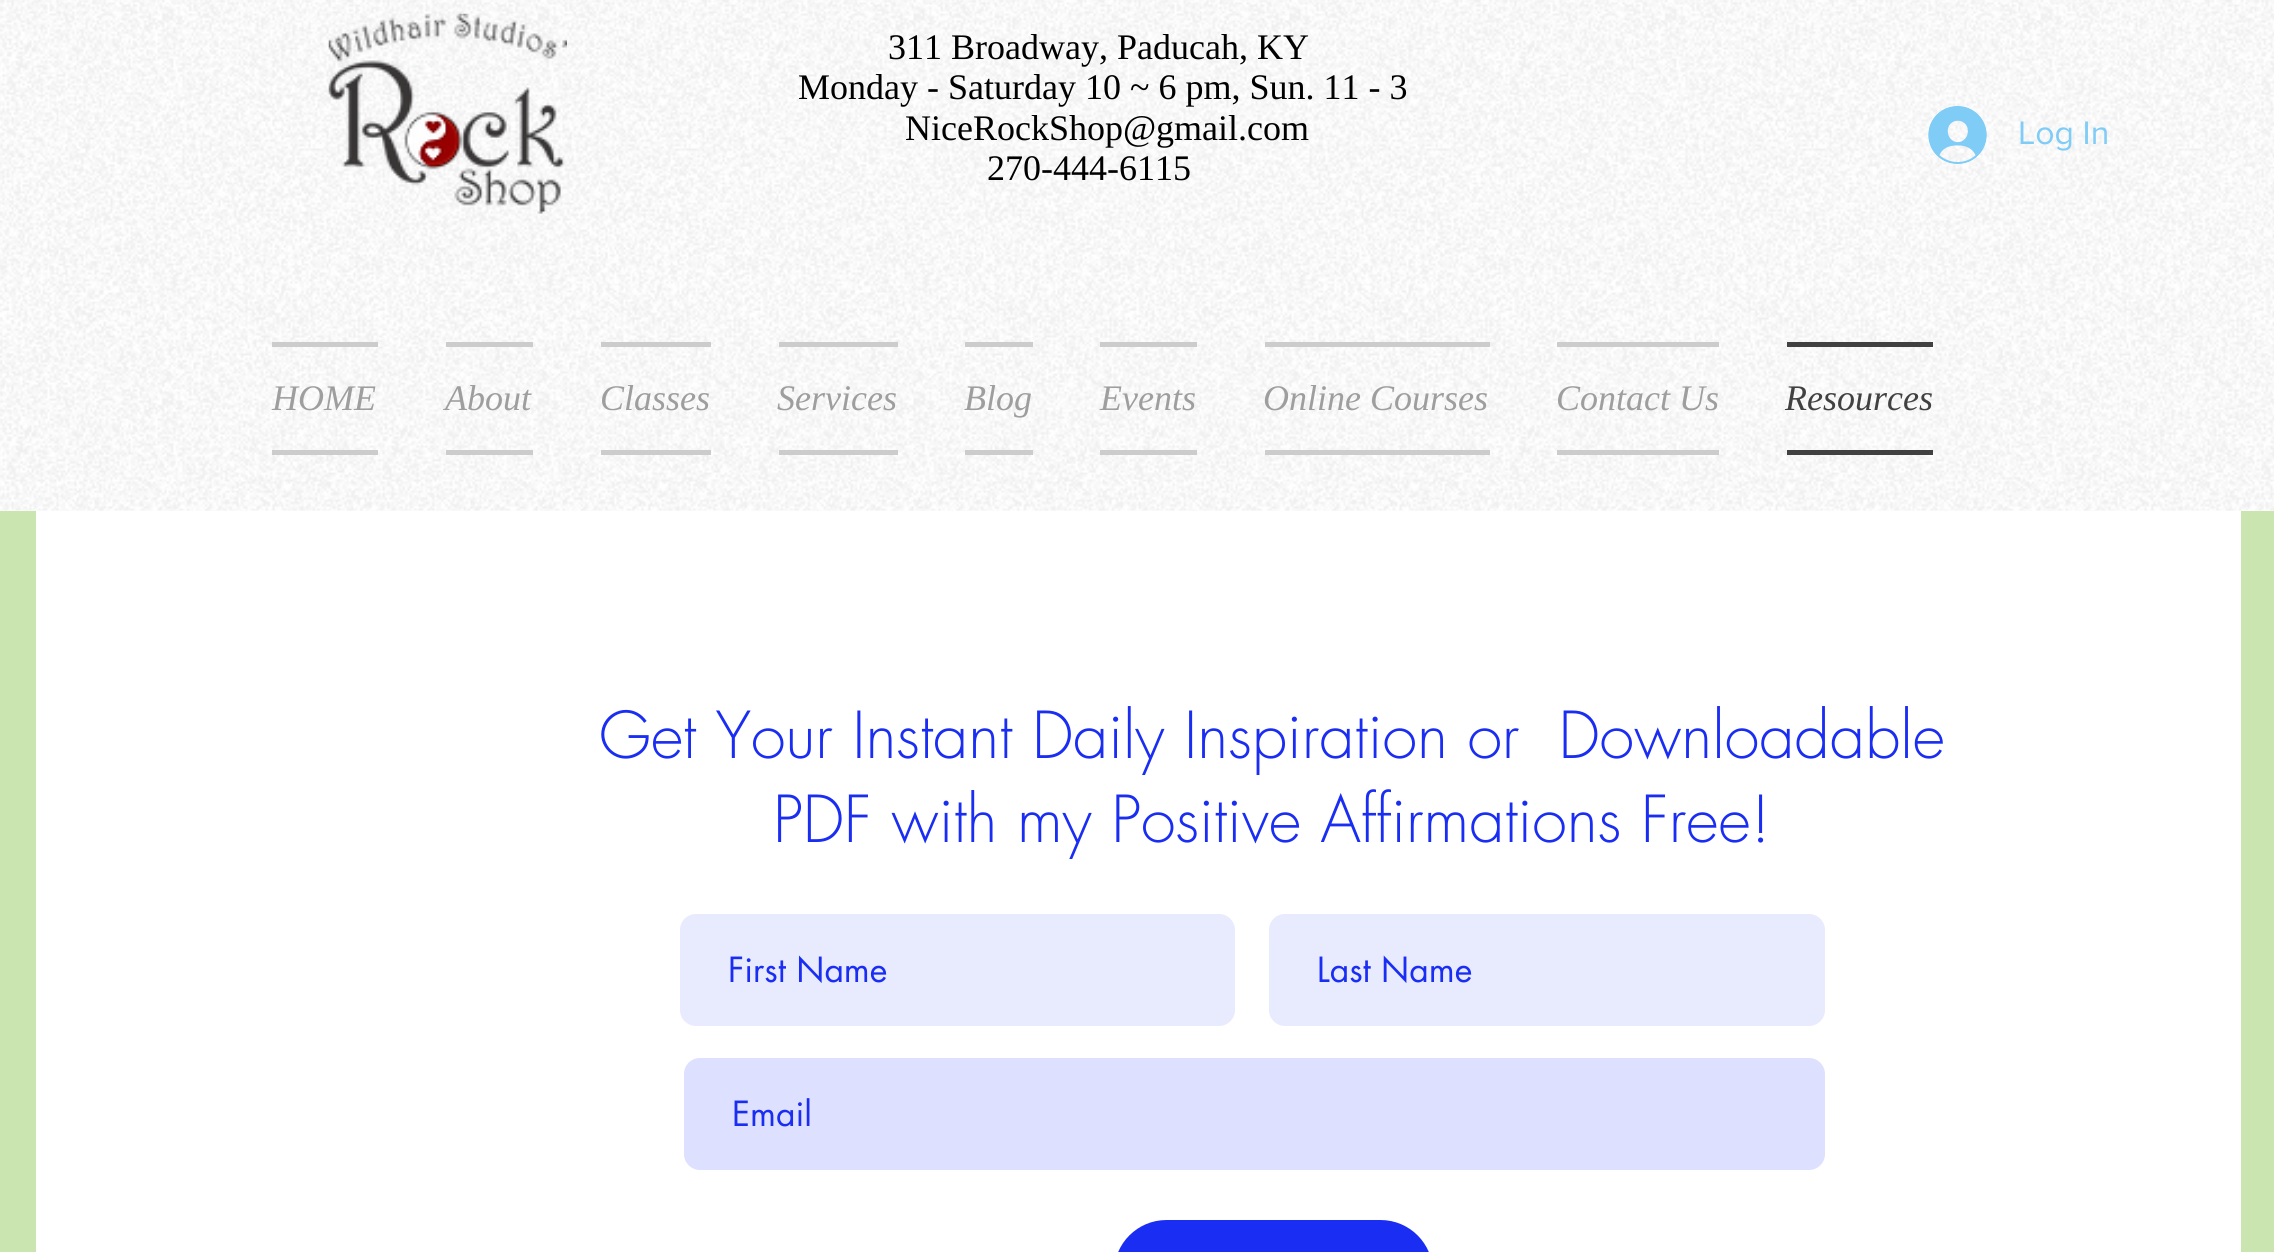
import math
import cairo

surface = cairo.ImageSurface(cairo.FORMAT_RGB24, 2274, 1252)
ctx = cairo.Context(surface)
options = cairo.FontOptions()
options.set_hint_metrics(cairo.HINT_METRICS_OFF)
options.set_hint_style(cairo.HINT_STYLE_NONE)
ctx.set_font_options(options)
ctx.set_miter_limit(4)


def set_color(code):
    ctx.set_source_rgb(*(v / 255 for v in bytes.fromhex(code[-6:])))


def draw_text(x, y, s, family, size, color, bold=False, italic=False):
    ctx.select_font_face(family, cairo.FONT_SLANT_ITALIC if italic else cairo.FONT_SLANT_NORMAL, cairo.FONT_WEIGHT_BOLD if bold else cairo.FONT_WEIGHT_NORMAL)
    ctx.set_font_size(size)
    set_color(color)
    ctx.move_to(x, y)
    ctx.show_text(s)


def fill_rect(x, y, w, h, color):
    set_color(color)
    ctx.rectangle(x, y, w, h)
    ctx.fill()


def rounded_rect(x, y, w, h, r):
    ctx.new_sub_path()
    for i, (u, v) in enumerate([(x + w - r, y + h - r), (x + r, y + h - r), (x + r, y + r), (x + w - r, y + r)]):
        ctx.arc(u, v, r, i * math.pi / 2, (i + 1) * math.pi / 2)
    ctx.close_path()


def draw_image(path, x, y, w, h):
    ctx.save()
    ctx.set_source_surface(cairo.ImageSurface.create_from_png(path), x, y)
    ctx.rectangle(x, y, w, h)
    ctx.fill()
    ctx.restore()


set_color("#cae5af")
ctx.paint()
fill_rect(0, 0, 2274, 511, "#ffffff")
draw_image("assets/img1.png", 0, 0, 2274, 511)
draw_image("assets/img2.png", 328, 13, 239, 201)
draw_text(888, 59, "311 Broadway, Paducah, KY", "Liberation Serif", 36, "#000000")
draw_text(798, 99, "Monday - Saturday 10 ~ 6 pm, Sun. 11 - 3", "Liberation Serif", 36, "#000000")
draw_text(905, 140, "NiceRockShop@gmail.com", "Liberation Serif", 36, "#000000")
draw_text(987, 180, "270-444-6115", "Liberation Serif", 36, "#000000")
draw_image("assets/img3.png", 1928, 106, 59, 58)
draw_text(2018, 144, "Log In", "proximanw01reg", 33.75, "#7fccf7")
fill_rect(272, 342, 106, 5, "#cccccc")
fill_rect(272, 450, 106, 5, "#cccccc")
draw_text(272, 410, "HOME", "Liberation Serif", 36, "#9e9e9e", italic=True)
fill_rect(446, 342, 87, 5, "#cccccc")
fill_rect(446, 450, 87, 5, "#cccccc")
draw_text(445, 410, "About", "Liberation Serif", 36, "#9e9e9e", italic=True)
fill_rect(601, 342, 110, 5, "#cccccc")
fill_rect(601, 450, 110, 5, "#cccccc")
draw_text(600, 410, "Classes", "Liberation Serif", 36, "#9e9e9e", italic=True)
fill_rect(779, 342, 119, 5, "#cccccc")
fill_rect(779, 450, 119, 5, "#cccccc")
draw_text(777, 410, "Services", "Liberation Serif", 36, "#9e9e9e", italic=True)
fill_rect(965, 342, 68, 5, "#cccccc")
fill_rect(965, 450, 68, 5, "#cccccc")
draw_text(964, 410, "Blog", "Liberation Serif", 36, "#9e9e9e", italic=True)
fill_rect(1100, 342, 97, 5, "#cccccc")
fill_rect(1100, 450, 97, 5, "#cccccc")
draw_text(1100, 410, "Events", "Liberation Serif", 36, "#9e9e9e", italic=True)
fill_rect(1265, 342, 225, 5, "#cccccc")
fill_rect(1265, 450, 225, 5, "#cccccc")
draw_text(1263, 410, "Online Courses", "Liberation Serif", 36, "#9e9e9e", italic=True)
fill_rect(1557, 342, 162, 5, "#cccccc")
fill_rect(1557, 450, 162, 5, "#cccccc")
draw_text(1556, 410, "Contact Us", "Liberation Serif", 36, "#9e9e9e", italic=True)
fill_rect(1787, 342, 146, 5, "#414141")
fill_rect(1787, 450, 146, 5, "#414141")
draw_text(1785, 410, "Resources", "Liberation Serif", 36, "#414141", italic=True)
fill_rect(36, 511, 2205, 741, "#ffffff")
draw_text(599, 758, "Get Your Instant Daily Inspiration or  Downloadable", "futura Light", 63, "#1a2df3")
draw_text(773, 842, "PDF with my Positive Affirmations Free!", "futura Light", 63, "#1a2df3")
set_color("#e8eafe")
rounded_rect(680, 914, 555, 112, 16)
ctx.fill()
draw_text(728, 982, "First Name", "futura", 33.75, "#1a2df3")
set_color("#e8eafe")
rounded_rect(1269, 914, 556, 112, 16)
ctx.fill()
draw_text(1317, 982, "Last Name", "futura", 33.75, "#1a2df3")
set_color("#dde0fe")
rounded_rect(684, 1058, 1141, 112, 16)
ctx.fill()
draw_text(732, 1126, "Email", "futura", 33.75, "#1a2df3")
rounded_rect(1114, 1220, 319, 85, 52.5)
ctx.fill()
surface.write_to_png("output.png")
